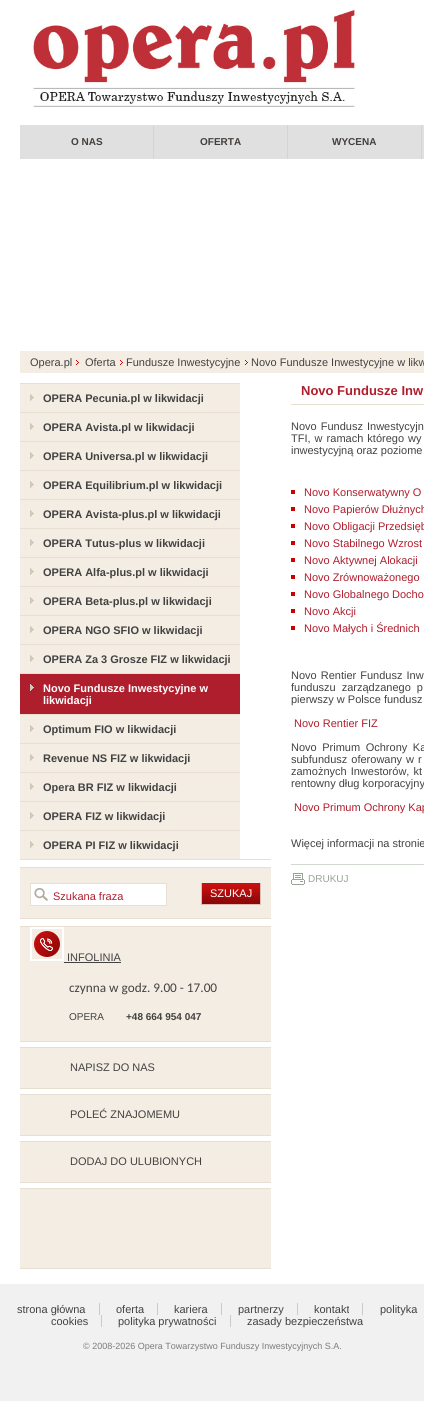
import math
import cairo

surface = cairo.ImageSurface(cairo.FORMAT_RGB24, 424, 1401)
ctx = cairo.Context(surface)
options = cairo.FontOptions()
options.set_hint_metrics(cairo.HINT_METRICS_OFF)
options.set_hint_style(cairo.HINT_STYLE_NONE)
ctx.set_font_options(options)
ctx.set_miter_limit(4)


def set_color(code):
    ctx.set_source_rgb(*(v / 255 for v in bytes.fromhex(code[-6:])))


def draw_text(x, y, s, family, size, color, bold=False, italic=False):
    ctx.select_font_face(family, cairo.FONT_SLANT_ITALIC if italic else cairo.FONT_SLANT_NORMAL, cairo.FONT_WEIGHT_BOLD if bold else cairo.FONT_WEIGHT_NORMAL)
    ctx.set_font_size(size)
    set_color(color)
    ctx.move_to(x, y)
    ctx.show_text(s)


def draw_spaced(x, y, s, letter, word):
    ctx.move_to(x, y)
    for ch in s:
        ctx.show_text(ch)
        ctx.rel_move_to(letter + word * (ch == ' '), 0)


def fill_rect(x, y, w, h, color):
    set_color(color)
    ctx.rectangle(x, y, w, h)
    ctx.fill()


def draw_image(path, x, y, w, h):
    ctx.save()
    ctx.set_source_surface(cairo.ImageSurface.create_from_png(path), x, y)
    ctx.rectangle(x, y, w, h)
    ctx.fill()
    ctx.restore()


set_color("#f1f1f1")
ctx.paint()
fill_rect(0, 0, 424, 1284, "#ffffff")
draw_image("assets/img1.png", 31, 10, 325, 97)
fill_rect(20, 125, 133, 34, "#e0e0e0")
fill_rect(153, 125, 1, 34, "#d4d4d4")
draw_text(71, 145, "O NAS", "Liberation Sans", 10, "#433f3c", bold=True)
fill_rect(154, 125, 133, 34, "#e0e0e0")
fill_rect(287, 125, 1, 34, "#d4d4d4")
draw_text(200, 145, "OFERTA", "Liberation Sans", 10, "#433f3c", bold=True)
fill_rect(288, 125, 133, 34, "#e0e0e0")
fill_rect(421, 125, 1, 34, "#d4d4d4")
draw_text(332, 145, "WYCENA", "Liberation Sans", 10, "#433f3c", bold=True)
fill_rect(422, 125, 2, 34, "#e0e0e0")
fill_rect(20, 351, 404, 22, "#f4ede3")
draw_text(30, 366, "Opera.pl", "Liberation Sans", 11, "#424242")
draw_image("assets/img2.png", 76, 360, 3, 5)
draw_text(85, 366, "Oferta", "Liberation Sans", 11, "#424242")
draw_image("assets/img2.png", 120, 360, 3, 5)
draw_text(126, 366, "Fundusze Inwestycyjne", "Liberation Sans", 11, "#424242")
draw_image("assets/img2.png", 245, 360, 3, 5)
draw_text(251, 366, "Novo Fundusze Inwestycyjne w likw", "Liberation Sans", 11, "#424242")
fill_rect(20, 859, 251, 1, "#e8dfd3")
fill_rect(20, 383, 220, 1, "#e8dfd3")
fill_rect(20, 384, 220, 28, "#f4ede3")
draw_image("assets/img3.png", 30, 394, 4, 7)
draw_text(43, 402, "OPERA Pecunia.pl w likwidacji", "Liberation Sans", 11, "#424242", bold=True)
fill_rect(20, 412, 220, 1, "#e8dfd3")
fill_rect(20, 413, 220, 28, "#f4ede3")
draw_image("assets/img3.png", 30, 423, 4, 7)
draw_text(43, 431, "OPERA Avista.pl w likwidacji", "Liberation Sans", 11, "#424242", bold=True)
fill_rect(20, 441, 220, 1, "#e8dfd3")
fill_rect(20, 442, 220, 28, "#f4ede3")
draw_image("assets/img3.png", 30, 452, 4, 7)
draw_text(43, 460, "OPERA Universa.pl w likwidacji", "Liberation Sans", 11, "#424242", bold=True)
fill_rect(20, 470, 220, 1, "#e8dfd3")
fill_rect(20, 471, 220, 28, "#f4ede3")
draw_image("assets/img3.png", 30, 481, 4, 7)
draw_text(43, 489, "OPERA Equilibrium.pl w likwidacji", "Liberation Sans", 11, "#424242", bold=True)
fill_rect(20, 499, 220, 1, "#e8dfd3")
fill_rect(20, 500, 220, 28, "#f4ede3")
draw_image("assets/img3.png", 30, 510, 4, 7)
draw_text(43, 518, "OPERA Avista-plus.pl w likwidacji", "Liberation Sans", 11, "#424242", bold=True)
fill_rect(20, 528, 220, 1, "#e8dfd3")
fill_rect(20, 529, 220, 28, "#f4ede3")
draw_image("assets/img3.png", 30, 539, 4, 7)
draw_text(43, 547, "OPERA Tutus-plus w likwidacji", "Liberation Sans", 11, "#424242", bold=True)
fill_rect(20, 557, 220, 1, "#e8dfd3")
fill_rect(20, 558, 220, 28, "#f4ede3")
draw_image("assets/img3.png", 30, 568, 4, 7)
draw_text(43, 576, "OPERA Alfa-plus.pl w likwidacji", "Liberation Sans", 11, "#424242", bold=True)
fill_rect(20, 586, 220, 1, "#e8dfd3")
fill_rect(20, 587, 220, 28, "#f4ede3")
draw_image("assets/img3.png", 30, 597, 4, 7)
draw_text(43, 605, "OPERA Beta-plus.pl w likwidacji", "Liberation Sans", 11, "#424242", bold=True)
fill_rect(20, 615, 220, 1, "#e8dfd3")
fill_rect(20, 616, 220, 28, "#f4ede3")
draw_image("assets/img3.png", 30, 626, 4, 7)
draw_text(43, 634, "OPERA NGO SFIO w likwidacji", "Liberation Sans", 11, "#424242", bold=True)
fill_rect(20, 644, 220, 1, "#e8dfd3")
fill_rect(20, 645, 220, 28, "#f4ede3")
draw_image("assets/img3.png", 30, 655, 4, 7)
draw_text(43, 663, "OPERA Za 3 Grosze FIZ w likwidacji", "Liberation Sans", 11, "#424242", bold=True)
fill_rect(20, 673, 220, 1, "#e8dfd3")
fill_rect(20, 674, 220, 40, "#af1e2d")
draw_image("assets/img4.png", 30, 684, 4, 7)
draw_text(43, 692, "Novo Fundusze Inwestycyjne w", "Liberation Sans", 11, "#ffffff", bold=True)
draw_text(43, 704, "likwidacji", "Liberation Sans", 11, "#ffffff", bold=True)
fill_rect(20, 714, 220, 1, "#e8dfd3")
fill_rect(20, 715, 220, 28, "#f4ede3")
draw_image("assets/img3.png", 30, 725, 4, 7)
draw_text(43, 733, "Optimum FIO w likwidacji", "Liberation Sans", 11, "#424242", bold=True)
fill_rect(20, 743, 220, 1, "#e8dfd3")
fill_rect(20, 744, 220, 28, "#f4ede3")
draw_image("assets/img3.png", 30, 754, 4, 7)
draw_text(43, 762, "Revenue NS FIZ w likwidacji", "Liberation Sans", 11, "#424242", bold=True)
fill_rect(20, 772, 220, 1, "#e8dfd3")
fill_rect(20, 773, 220, 28, "#f4ede3")
draw_image("assets/img3.png", 30, 783, 4, 7)
draw_text(43, 791, "Opera BR FIZ w likwidacji", "Liberation Sans", 11, "#424242", bold=True)
fill_rect(20, 801, 220, 1, "#e8dfd3")
fill_rect(20, 802, 220, 28, "#f4ede3")
draw_image("assets/img3.png", 30, 812, 4, 7)
draw_text(43, 820, "OPERA FIZ w likwidacji", "Liberation Sans", 11, "#424242", bold=True)
fill_rect(20, 830, 220, 1, "#e8dfd3")
fill_rect(20, 831, 220, 28, "#f4ede3")
draw_image("assets/img3.png", 30, 841, 4, 7)
draw_text(43, 849, "OPERA PI FIZ w likwidacji", "Liberation Sans", 11, "#424242", bold=True)
fill_rect(20, 918, 251, 1, "#e8dfd3")
fill_rect(20, 868, 251, 50, "#f4ede3")
fill_rect(20, 867, 251, 1, "#e8dfd3")
fill_rect(31, 884, 135, 21, "#ffffff")
draw_image("assets/img5.png", 34, 888, 14, 13)
ctx.rectangle(30.5, 883.5, 136, 22)
set_color("#e8dfd3")
ctx.set_line_width(1)
ctx.stroke()
draw_text(53, 900, "Szukana fraza", "Liberation Sans", 11, "#af1e2d")
draw_image("assets/img6.png", 202, 883, 58, 21)
fill_rect(260, 883, 1, 22, "#debfb6")
fill_rect(201, 904, 60, 1, "#debfb6")
fill_rect(201, 883, 1, 22, "#debfb6")
draw_text(210, 897, "SZUKAJ", "Liberation Sans", 11, "#ffffff")
fill_rect(20, 927, 251, 114, "#f4ede3")
fill_rect(20, 926, 251, 1, "#e8dfd3")
fill_rect(20, 1041, 251, 1, "#e8dfd3")
draw_image("assets/img7.png", 30, 927, 34, 34)
draw_text(67, 961, "INFOLINIA", "Liberation Sans", 11, "#424242")
fill_rect(64, 962, 57, 1, "#424242")
draw_text(69, 992, "czynna w godz. 9.00 - 17.00", "Carlito", 13.25, "#424242")
draw_text(69, 1020, "OPERA", "Liberation Sans", 10, "#424242")
draw_text(126, 1020, "+48 664 954 047", "Liberation Sans", 10, "#424242", bold=True)
fill_rect(20, 1048, 251, 40, "#f4ede3")
fill_rect(20, 1047, 251, 1, "#e8dfd3")
fill_rect(20, 1088, 251, 1, "#e8dfd3")
draw_text(70, 1071, "NAPISZ DO NAS", "Liberation Sans", 11, "#424242")
fill_rect(20, 1095, 251, 40, "#f4ede3")
fill_rect(20, 1094, 251, 1, "#e8dfd3")
fill_rect(20, 1135, 251, 1, "#e8dfd3")
draw_text(70, 1118, "POLEĆ ZNAJOMEMU", "Liberation Sans", 11, "#424242")
fill_rect(20, 1142, 251, 40, "#f4ede3")
fill_rect(20, 1141, 251, 1, "#e8dfd3")
fill_rect(20, 1182, 251, 1, "#e8dfd3")
draw_text(70, 1165, "DODAJ DO ULUBIONYCH", "Liberation Sans", 11, "#424242")
fill_rect(20, 1189, 251, 79, "#f4ede3")
fill_rect(20, 1188, 251, 1, "#e8dfd3")
fill_rect(20, 1268, 251, 1, "#e8dfd3")
draw_text(301, 395, "Novo Fundusze Inw", "Liberation Sans", 13, "#af1e2d", bold=True)
fill_rect(291, 404, 133, 1, "#e8dfd3")
ctx.select_font_face("Liberation Sans")
ctx.set_font_size(11)
set_color("#424242")
draw_spaced(291, 430, "Novo Fundusz Inwestycyjn", 0, 1)
draw_spaced(291, 442, "TFI, w ramach którego wy", 0, 1)
draw_text(291, 454, "inwestycyjną oraz poziome", "Liberation Sans", 11, "#424242")
fill_rect(291, 490, 4, 4, "#cc0001")
draw_text(304, 496, "Novo Konserwatywny O", "Liberation Sans", 11, "#af1e2d")
fill_rect(291, 507, 4, 4, "#cc0001")
draw_text(304, 513, "Novo Papierów Dłużnych", "Liberation Sans", 11, "#af1e2d")
fill_rect(291, 524, 4, 4, "#cc0001")
draw_text(304, 530, "Novo Obligacji Przedsięb", "Liberation Sans", 11, "#af1e2d")
fill_rect(291, 541, 4, 4, "#cc0001")
draw_text(304, 547, "Novo Stabilnego Wzrost", "Liberation Sans", 11, "#af1e2d")
fill_rect(291, 558, 4, 4, "#cc0001")
draw_text(304, 564, "Novo Aktywnej Alokacji", "Liberation Sans", 11, "#af1e2d")
fill_rect(291, 575, 4, 4, "#cc0001")
draw_text(304, 581, "Novo Zrównoważonego", "Liberation Sans", 11, "#af1e2d")
fill_rect(291, 592, 4, 4, "#cc0001")
draw_text(304, 598, "Novo Globalnego Docho", "Liberation Sans", 11, "#af1e2d")
fill_rect(291, 609, 4, 4, "#cc0001")
draw_text(304, 615, "Novo Akcji", "Liberation Sans", 11, "#af1e2d")
fill_rect(291, 626, 4, 4, "#cc0001")
draw_text(304, 632, "Novo Małych i Średnich", "Liberation Sans", 11, "#af1e2d")
set_color("#424242")
draw_spaced(291, 679, "Novo Rentier Fundusz Inw", 0, 1)
draw_spaced(291, 691, "funduszu zarządzanego p", 0, 3)
draw_text(291, 703, "pierwszy w Polsce fundusz", "Liberation Sans", 11, "#424242")
draw_text(294, 727, "Novo Rentier FIZ", "Liberation Sans", 11, "#af1e2d")
set_color("#424242")
draw_spaced(291, 751, "Novo Primum Ochrony Ka", 0, 2.5)
draw_spaced(291, 763, "subfundusz oferowany w r", 0, 1)
draw_spaced(291, 775, "zamożnych Inwestorów, kt", 0, 1)
draw_text(291, 787, "rentowny dług korporacyjny", "Liberation Sans", 11, "#424242")
draw_text(294, 811, "Novo Primum Ochrony Kap", "Liberation Sans", 11, "#af1e2d")
draw_text(291, 847, "Więcej informacji na stronie", "Liberation Sans", 11, "#424242")
fill_rect(291, 864, 133, 1, "#d2d9d0")
draw_image("assets/img8.png", 291, 873, 14, 12)
draw_text(308, 882, "DRUKUJ", "Liberation Sans", 10, "#99a397")
draw_text(17, 1313, "strona główna", "Liberation Sans", 11, "#424242")
fill_rect(99, 1303, 1, 12, "#cbcbcb")
draw_text(116, 1313, "oferta", "Liberation Sans", 11, "#424242")
fill_rect(157, 1303, 1, 12, "#cbcbcb")
draw_text(174, 1313, "kariera", "Liberation Sans", 11, "#424242")
fill_rect(221, 1303, 1, 12, "#cbcbcb")
draw_text(238, 1313, "partnerzy", "Liberation Sans", 11, "#424242")
fill_rect(297, 1303, 1, 12, "#cbcbcb")
draw_text(314, 1313, "kontakt", "Liberation Sans", 11, "#424242")
fill_rect(362, 1303, 1, 12, "#cbcbcb")
draw_text(380, 1313, "polityka", "Liberation Sans", 11, "#424242")
draw_text(51, 1325, "cookies", "Liberation Sans", 11, "#424242")
fill_rect(101, 1315, 1, 12, "#cbcbcb")
draw_text(118, 1325, "polityka prywatności", "Liberation Sans", 11, "#424242")
fill_rect(230, 1315, 1, 12, "#cbcbcb")
draw_text(247, 1325, "zasady bezpieczeństwa", "Liberation Sans", 11, "#424242")
draw_text(83, 1349, "© 2008-2026 Opera Towarzystwo Funduszy Inwestycyjnych S.A.", "Liberation Sans", 9, "#7c7c7c")
surface.write_to_png("output.png")
